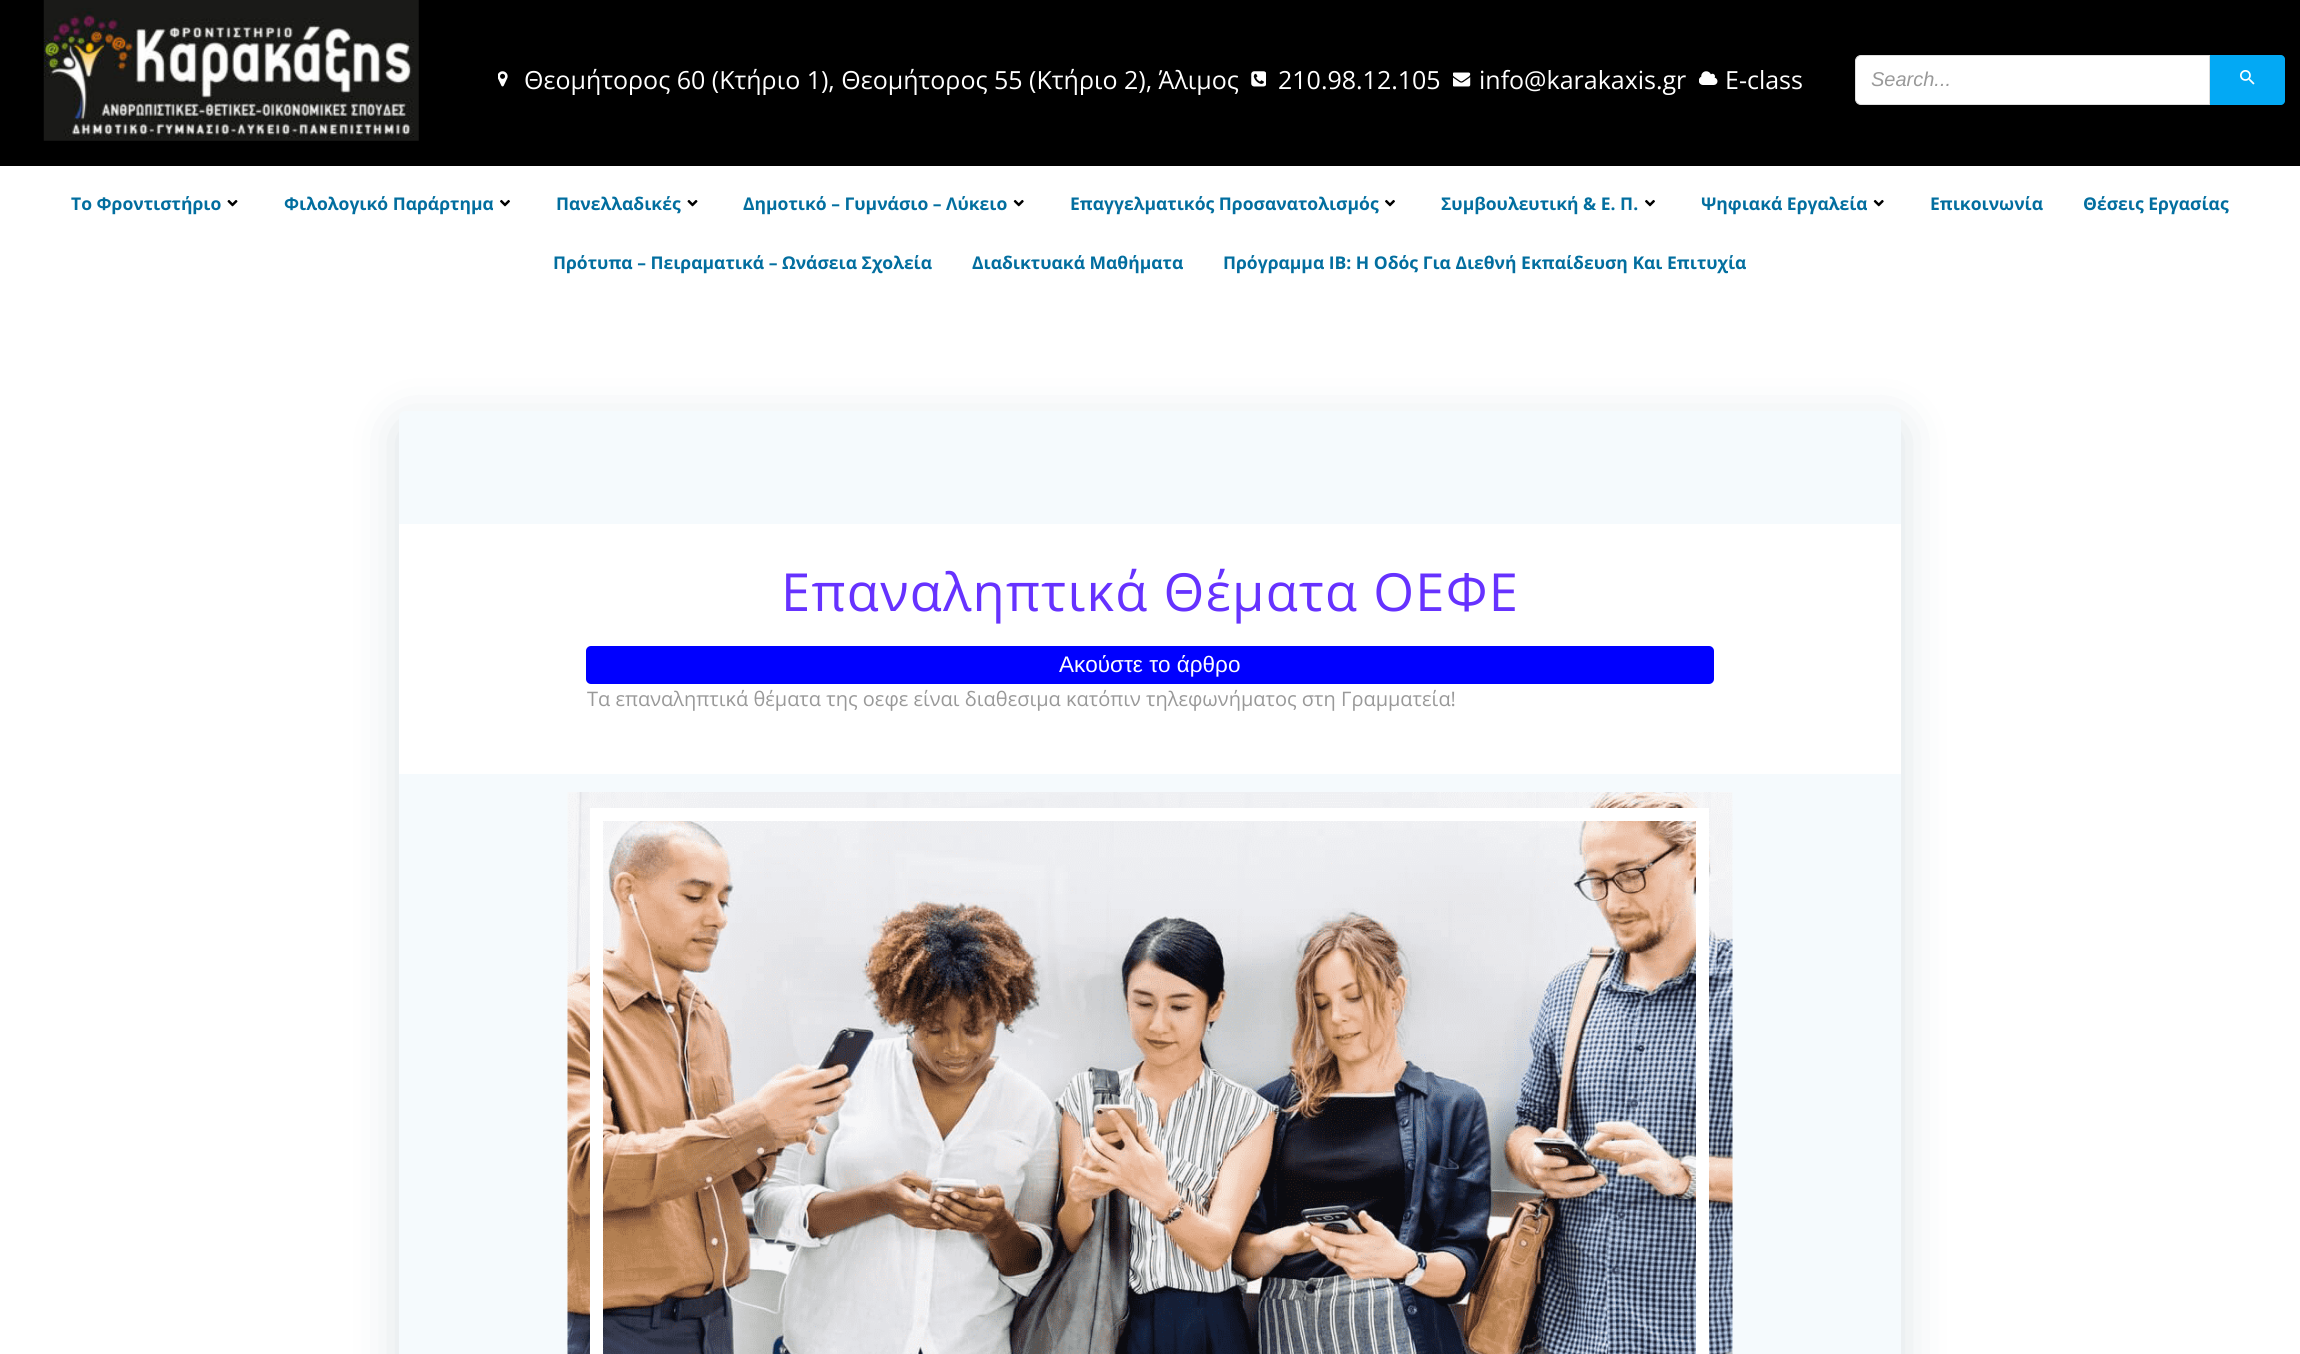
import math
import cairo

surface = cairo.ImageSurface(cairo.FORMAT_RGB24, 2300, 1354)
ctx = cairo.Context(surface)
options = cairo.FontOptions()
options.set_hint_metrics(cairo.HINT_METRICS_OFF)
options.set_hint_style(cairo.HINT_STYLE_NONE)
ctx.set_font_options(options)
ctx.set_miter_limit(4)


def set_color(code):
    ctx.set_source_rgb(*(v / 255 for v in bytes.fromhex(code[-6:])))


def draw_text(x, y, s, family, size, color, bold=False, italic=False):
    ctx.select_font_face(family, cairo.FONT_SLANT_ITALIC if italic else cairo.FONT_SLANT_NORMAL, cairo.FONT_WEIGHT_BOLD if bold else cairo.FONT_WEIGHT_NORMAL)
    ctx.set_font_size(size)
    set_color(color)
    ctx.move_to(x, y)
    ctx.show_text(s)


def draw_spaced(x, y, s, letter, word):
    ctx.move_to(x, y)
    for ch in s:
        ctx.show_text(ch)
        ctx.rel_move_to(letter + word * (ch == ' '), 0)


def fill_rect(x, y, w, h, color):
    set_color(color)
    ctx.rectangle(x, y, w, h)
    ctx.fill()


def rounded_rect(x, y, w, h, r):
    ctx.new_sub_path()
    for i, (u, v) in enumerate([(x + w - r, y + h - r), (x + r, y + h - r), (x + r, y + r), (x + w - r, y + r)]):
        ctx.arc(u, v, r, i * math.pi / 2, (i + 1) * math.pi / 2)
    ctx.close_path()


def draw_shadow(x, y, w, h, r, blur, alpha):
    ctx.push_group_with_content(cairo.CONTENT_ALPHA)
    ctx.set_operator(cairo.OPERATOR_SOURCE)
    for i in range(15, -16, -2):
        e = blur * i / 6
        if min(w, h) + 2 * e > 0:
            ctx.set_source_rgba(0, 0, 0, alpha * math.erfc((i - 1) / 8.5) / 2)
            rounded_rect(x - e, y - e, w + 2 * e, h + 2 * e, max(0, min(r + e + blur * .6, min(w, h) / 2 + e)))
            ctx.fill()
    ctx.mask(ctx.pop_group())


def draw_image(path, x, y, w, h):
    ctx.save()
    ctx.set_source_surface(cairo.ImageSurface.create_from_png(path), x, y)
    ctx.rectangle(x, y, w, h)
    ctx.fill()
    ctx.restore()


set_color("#000000")
ctx.paint()
draw_image("assets/img1.png", 43, 0, 376, 141)
draw_image("assets/img2.png", 498, 71, 10, 16)
draw_text(524, 89, "Θεομήτορος 60 (Κτήριο 1), Θεομήτορος 55 (Κτήριο 2), Άλιμος", "Open Sans", 25, "#ffffff")
draw_image("assets/img3.png", 1251, 71, 15, 16)
draw_text(1278, 89, "210.98.12.105", "Open Sans", 25, "#ffffff")
draw_image("assets/img4.png", 1453, 72, 18, 15)
draw_text(1479, 89, "info@karakaxis.gr", "Open Sans", 25, "#ffffff")
draw_image("assets/img5.png", 1699, 71, 19, 14)
draw_text(1725, 89, "E-class", "Open Sans", 25, "#ffffff")
ctx.new_path()
ctx.move_to(1861, 55.5)
ctx.line_to(2209.5, 55.5)
ctx.line_to(2209.5, 104.5)
ctx.line_to(1861, 104.5)
ctx.curve_to(1858, 104.5, 1855.5, 102, 1855.5, 99)
ctx.line_to(1855.5, 61)
ctx.curve_to(1855.5, 58, 1858, 55.5, 1861, 55.5)
ctx.close_path()
ctx.fill_preserve()
set_color("#dedede")
ctx.set_line_width(1)
ctx.stroke()
draw_text(1871, 86, "Search...", "Liberation Sans", 20, "#999999", italic=True)
set_color("#03a9f4")
ctx.new_path()
ctx.move_to(2210, 55)
ctx.line_to(2281, 55)
ctx.curve_to(2283, 55, 2285, 57, 2285, 59)
ctx.line_to(2285, 101)
ctx.curve_to(2285, 103, 2283, 105, 2281, 105)
ctx.line_to(2210, 105)
ctx.close_path()
ctx.fill()
draw_image("assets/img6.png", 2240, 70, 15, 15)
fill_rect(0, 166, 2300, 1188, "#ffffff")
draw_text(71, 210, "Το Φροντιστήριο", "Open Sans", 17.5, "#026e9f", bold=True)
draw_image("assets/img7.png", 227, 200, 11, 7)
draw_text(284, 210, "Φιλολογικό Παράρτημα", "Open Sans", 17.5, "#026e9f", bold=True)
draw_image("assets/img8.png", 500, 199, 10, 8)
draw_text(556, 210, "Πανελλαδικές", "Open Sans", 17.5, "#026e9f", bold=True)
draw_image("assets/img7.png", 687, 200, 11, 7)
draw_text(743, 210, "Δημοτικό – Γυμνάσιο – Λύκειο", "Open Sans", 17.5, "#026e9f", bold=True)
draw_image("assets/img9.png", 1013, 199, 11, 8)
draw_text(1070, 210, "Επαγγελματικός Προσανατολισμός", "Open Sans", 17.5, "#026e9f", bold=True)
draw_image("assets/img8.png", 1385, 199, 10, 8)
draw_text(1441, 210, "Συμβουλευτική & Ε. Π.", "Open Sans", 17.5, "#026e9f", bold=True)
draw_image("assets/img8.png", 1645, 199, 10, 8)
draw_text(1701, 210, "Ψηφιακά Εργαλεία", "Open Sans", 17.5, "#026e9f", bold=True)
draw_image("assets/img9.png", 1873, 199, 11, 8)
draw_text(1930, 210, "Επικοινωνία", "Open Sans", 17.5, "#026e9f", bold=True)
draw_text(2083, 210, "Θέσεις Εργασίας", "Open Sans", 17.5, "#026e9f", bold=True)
draw_text(553, 269, "Πρότυπα – Πειραματικά – Ωνάσεια Σχολεία", "Open Sans", 17.5, "#026e9f", bold=True)
draw_text(972, 269, "Διαδικτυακά Μαθήματα", "Open Sans", 17.5, "#026e9f", bold=True)
draw_text(1223, 269, "Πρόγραμμα IB: Η Οδός Για Διεθνή Εκπαίδευση Και Επιτυχία", "Open Sans", 17.5, "#026e9f", bold=True)
set_color("#01334a")
draw_shadow(399, 424, 1502, 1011, 6, 25, 0.15)
set_color("#f5fafd")
rounded_rect(399, 411, 1502, 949, 6)
ctx.fill()
fill_rect(399, 524, 1502, 250, "#ffffff")
ctx.select_font_face("Open Sans")
ctx.set_font_size(52.5)
set_color("#6632ff")
draw_spaced(781, 611, "Επαναληπτικά Θέματα ΟΕΦΕ", 1.25, 0)
set_color("#0000ff")
rounded_rect(586, 646, 1128, 38, 5)
ctx.fill()
draw_text(1059, 672, "Ακούστε το άρθρο", "Liberation Sans", 22.5, "#ffffff")
draw_text(587, 706, "Tα επαναληπτικά θέματα της οεφε είναι διαθεσιμα κατόπιν τηλεφωνήματος στη Γραμματεία!", "Open Sans", 20, "#999999")
draw_image("assets/img10.png", 567, 792, 1166, 562)
ctx.rectangle(596.5, 814.5, 1106, 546)
set_color("#ffffff")
ctx.set_line_width(13)
ctx.stroke()
surface.write_to_png("output.png")
